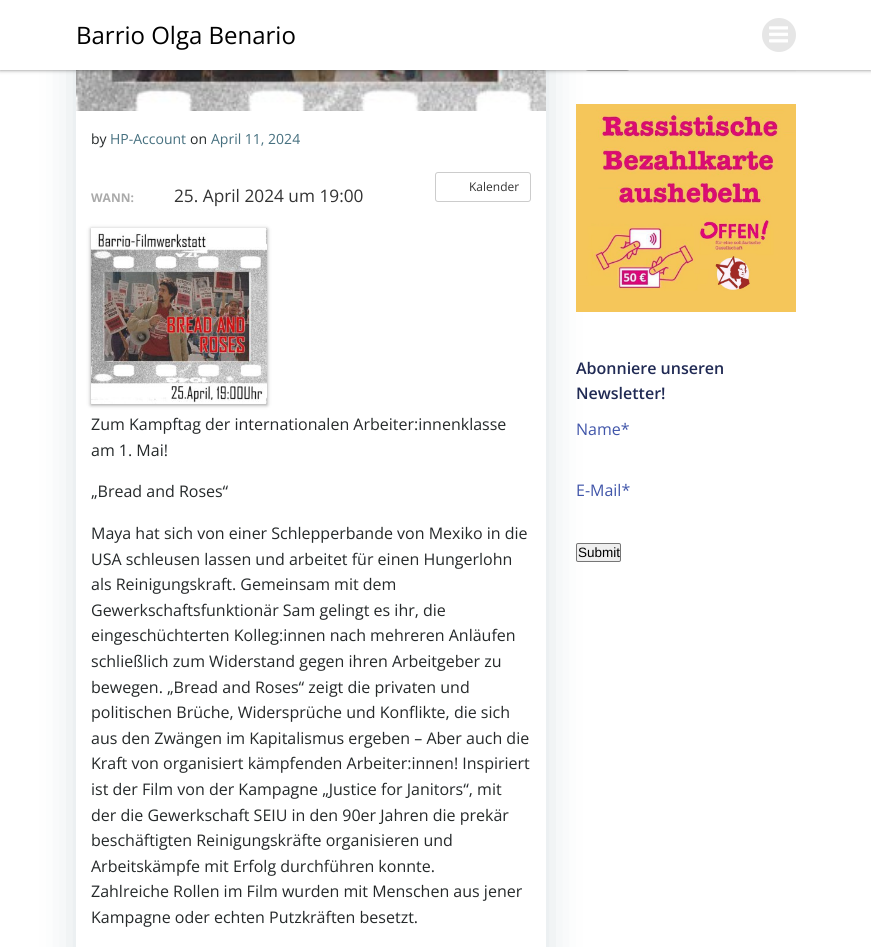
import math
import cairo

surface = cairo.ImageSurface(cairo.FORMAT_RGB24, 871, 947)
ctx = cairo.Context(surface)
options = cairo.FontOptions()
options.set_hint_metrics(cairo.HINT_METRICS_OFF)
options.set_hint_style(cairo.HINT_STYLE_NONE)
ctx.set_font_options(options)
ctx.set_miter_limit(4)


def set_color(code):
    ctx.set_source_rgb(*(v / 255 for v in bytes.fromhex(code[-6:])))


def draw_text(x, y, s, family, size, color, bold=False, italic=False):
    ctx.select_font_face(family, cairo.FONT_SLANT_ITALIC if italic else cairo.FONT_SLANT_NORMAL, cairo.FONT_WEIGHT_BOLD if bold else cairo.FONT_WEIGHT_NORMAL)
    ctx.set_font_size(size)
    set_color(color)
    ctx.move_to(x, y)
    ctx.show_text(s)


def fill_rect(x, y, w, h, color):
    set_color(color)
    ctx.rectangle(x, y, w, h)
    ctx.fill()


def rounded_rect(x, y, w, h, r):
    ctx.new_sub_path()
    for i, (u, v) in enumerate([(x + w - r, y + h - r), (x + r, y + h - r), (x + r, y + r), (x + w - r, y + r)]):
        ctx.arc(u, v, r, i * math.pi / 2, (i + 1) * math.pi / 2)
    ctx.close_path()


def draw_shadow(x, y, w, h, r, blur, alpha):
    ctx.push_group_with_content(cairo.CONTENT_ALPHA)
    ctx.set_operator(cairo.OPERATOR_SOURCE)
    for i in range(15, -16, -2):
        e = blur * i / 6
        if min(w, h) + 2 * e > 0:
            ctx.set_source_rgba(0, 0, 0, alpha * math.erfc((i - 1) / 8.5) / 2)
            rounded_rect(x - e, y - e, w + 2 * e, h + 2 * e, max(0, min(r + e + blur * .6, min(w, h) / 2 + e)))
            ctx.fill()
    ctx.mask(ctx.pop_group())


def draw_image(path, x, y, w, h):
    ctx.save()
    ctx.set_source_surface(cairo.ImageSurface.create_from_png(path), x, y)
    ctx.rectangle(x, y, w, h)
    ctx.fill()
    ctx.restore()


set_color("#ffffff")
ctx.paint()
ctx.save()
ctx.set_fill_rule(cairo.FILL_RULE_EVEN_ODD)
ctx.new_path()
ctx.move_to(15, 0)
ctx.line_to(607, 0)
ctx.line_to(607, 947)
ctx.line_to(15, 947)
ctx.close_path()
ctx.move_to(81, -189)
ctx.line_to(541, -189)
ctx.curve_to(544, -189, 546, -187, 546, -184)
ctx.line_to(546, 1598)
ctx.curve_to(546, 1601, 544, 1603, 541, 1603)
ctx.line_to(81, 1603)
ctx.curve_to(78, 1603, 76, 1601, 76, 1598)
ctx.line_to(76, -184)
ctx.curve_to(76, -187, 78, -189, 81, -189)
ctx.close_path()
ctx.clip()
set_color("#01334a")
draw_shadow(76, -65, 470, 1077, 5, 20, 0.15)
ctx.restore()
draw_image("assets/img2.png", 76, 70, 470, 41)
gradient = cairo.LinearGradient(686, 6, 686, 84)
gradient.add_color_stop_rgba(0, 0.949, 0.949, 0.949, 1)
gradient.add_color_stop_rgba(0.17, 0.949, 0.949, 0.949, 1)
gradient.add_color_stop_rgba(1, 1, 1, 1, 1)
ctx.set_source(gradient)
ctx.rectangle(590, 70, 206, 2)
ctx.fill()
set_color("#c2c2c2")
ctx.set_fill_rule(cairo.FILL_RULE_EVEN_ODD)
ctx.new_path()
ctx.move_to(589, 13)
ctx.line_to(626, 13)
ctx.curve_to(629, 13, 631, 15, 631, 18)
ctx.line_to(631, 66)
ctx.curve_to(631, 69, 629, 71, 626, 71)
ctx.line_to(589, 71)
ctx.curve_to(586, 71, 584, 69, 584, 66)
ctx.line_to(584, 18)
ctx.curve_to(584, 15, 586, 13, 589, 13)
ctx.close_path()
ctx.move_to(589, 13)
ctx.line_to(626, 13)
ctx.curve_to(628, 13, 630, 15, 630, 18)
ctx.line_to(630, 66)
ctx.curve_to(630, 68, 628, 70, 626, 70)
ctx.line_to(589, 70)
ctx.curve_to(587, 70, 585, 68, 585, 66)
ctx.line_to(585, 18)
ctx.curve_to(585, 15, 587, 13, 589, 13)
ctx.close_path()
ctx.fill()
set_color("#000000")
draw_shadow(0, 0, 871, 70, 0, 2, 0.5)
fill_rect(0, 0, 871, 70, "#ffffff")
draw_text(76, 44, "Barrio Olga Benario", "Open Sans", 24, "#000000")
set_color("#e6e6e6")
ctx.new_path()
ctx.arc(779, 35, 17, 0, 2 * math.pi)
ctx.fill()
draw_image("assets/img1.png", 769, 26, 19, 17)
draw_text(91, 144, "by", "Open Sans", 14, "#25292a")
draw_text(110, 144, "HP-Account", "Open Sans", 14, "#46707f")
draw_text(190, 144, "on", "Open Sans", 14, "#25292a")
draw_text(211, 144, "April 11, 2024", "Open Sans", 14, "#46707f")
rounded_rect(435.5, 172.5, 95, 29, 2.5)
set_color("#cccccc")
ctx.set_line_width(1)
ctx.stroke()
draw_text(469, 191, "Kalender", "Open Sans", 12, "#333333")
draw_text(91, 202, "WANN:", "Open Sans", 12, "#aaaaaa", bold=True)
draw_text(174, 202, "25. April 2024 um 19:00", "Open Sans", 17.25, "#333333")
set_color("#000000")
draw_shadow(91, 229, 176, 176, 0, 2, 0.4)
draw_image("assets/img3.png", 91, 228, 176, 176)
draw_text(91, 430, "Zum Kampftag der internationalen Arbeiter:innenklasse", "Open Sans", 16, "#25292a")
draw_text(91, 456, "am 1. Mai!", "Open Sans", 16, "#25292a")
draw_text(91, 497, "„Bread and Roses“", "Open Sans", 16, "#25292a")
draw_text(91, 539, "Maya hat sich von einer Schlepperbande von Mexiko in die", "Open Sans", 16, "#25292a")
draw_text(91, 565, "USA schleusen lassen und arbeitet für einen Hungerlohn", "Open Sans", 16, "#25292a")
draw_text(91, 590, "als Reinigungskraft. Gemeinsam mit dem", "Open Sans", 16, "#25292a")
draw_text(91, 616, "Gewerkschaftsfunktionär Sam gelingt es ihr, die", "Open Sans", 16, "#25292a")
draw_text(91, 641, "eingeschüchterten Kolleg:innen nach mehreren Anläufen", "Open Sans", 16, "#25292a")
draw_text(91, 667, "schließlich zum Widerstand gegen ihren Arbeitgeber zu", "Open Sans", 16, "#25292a")
draw_text(91, 693, "bewegen. „Bread and Roses“ zeigt die privaten und", "Open Sans", 16, "#25292a")
draw_text(91, 718, "politischen Brüche, Widersprüche und Konflikte, die sich", "Open Sans", 16, "#25292a")
draw_text(91, 744, "aus den Zwängen im Kapitalismus ergeben – Aber auch die", "Open Sans", 16, "#25292a")
draw_text(91, 769, "Kraft von organisiert kämpfenden Arbeiter:innen! Inspiriert", "Open Sans", 16, "#25292a")
draw_text(91, 795, "ist der Film von der Kampagne „Justice for Janitors“, mit", "Open Sans", 16, "#25292a")
draw_text(91, 821, "der die Gewerkschaft SEIU in den 90er Jahren die prekär", "Open Sans", 16, "#25292a")
draw_text(91, 846, "beschäftigten Reinigungskräfte organisieren und", "Open Sans", 16, "#25292a")
draw_text(91, 872, "Arbeitskämpfe mit Erfolg durchführen konnte.", "Open Sans", 16, "#25292a")
draw_text(91, 897, "Zahlreiche Rollen im Film wurden mit Menschen aus jener", "Open Sans", 16, "#25292a")
draw_text(91, 923, "Kampagne oder echten Putzkräften besetzt.", "Open Sans", 16, "#25292a")
draw_image("assets/img4.png", 576, 104, 220, 208)
draw_text(576, 374, "Abonniere unseren", "Open Sans SemiBold", 16, "#202a54")
draw_text(576, 399, "Newsletter!", "Open Sans SemiBold", 16, "#202a54")
draw_text(576, 435, "Name*", "Open Sans", 16, "#4055a9")
draw_text(576, 496, "E-Mail*", "Open Sans", 16, "#4055a9")
set_color("#efefef")
rounded_rect(576.5, 543.5, 44, 18, 1.5)
ctx.fill_preserve()
set_color("#767676")
ctx.stroke()
draw_text(578, 557, "Submit", "Liberation Sans", 13.5, "#000000")
surface.write_to_png("output.png")
